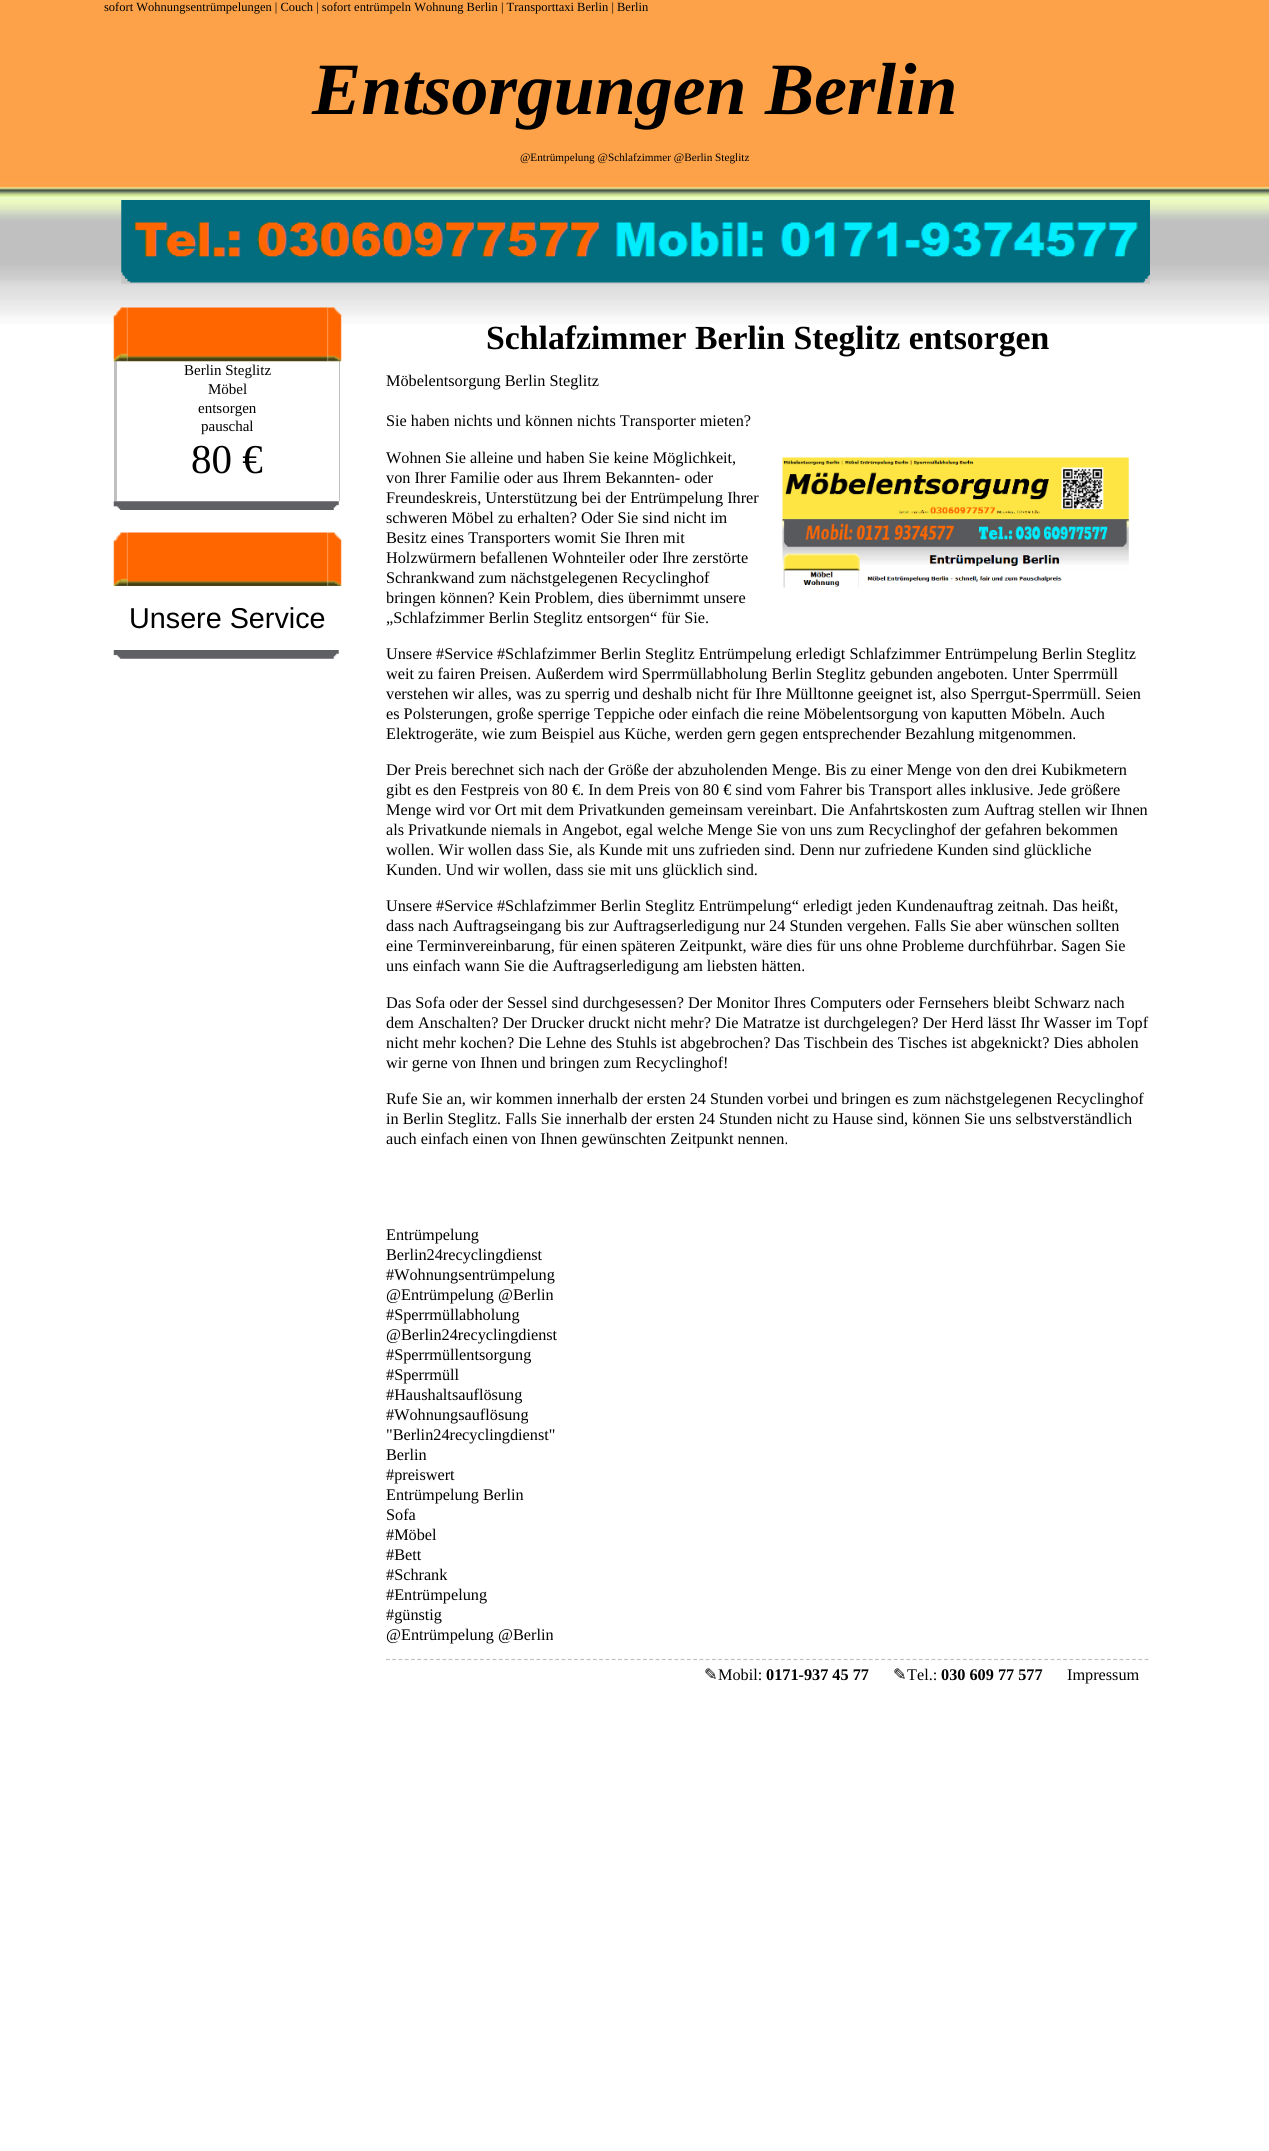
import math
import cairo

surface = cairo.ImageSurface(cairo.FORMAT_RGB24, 1269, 2151)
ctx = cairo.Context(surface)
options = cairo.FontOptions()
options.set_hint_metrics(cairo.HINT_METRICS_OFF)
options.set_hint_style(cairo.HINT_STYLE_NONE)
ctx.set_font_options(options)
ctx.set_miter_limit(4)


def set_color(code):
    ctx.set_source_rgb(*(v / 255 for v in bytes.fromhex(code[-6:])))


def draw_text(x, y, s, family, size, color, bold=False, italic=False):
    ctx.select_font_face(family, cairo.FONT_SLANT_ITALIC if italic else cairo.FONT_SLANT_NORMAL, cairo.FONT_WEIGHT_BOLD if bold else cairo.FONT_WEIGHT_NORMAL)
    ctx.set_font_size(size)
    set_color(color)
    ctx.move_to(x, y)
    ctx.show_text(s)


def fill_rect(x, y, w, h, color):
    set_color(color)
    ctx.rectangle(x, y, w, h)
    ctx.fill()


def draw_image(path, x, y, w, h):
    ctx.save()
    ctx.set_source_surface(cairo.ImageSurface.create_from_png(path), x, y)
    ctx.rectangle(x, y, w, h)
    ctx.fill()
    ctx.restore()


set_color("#ffffff")
ctx.paint()
draw_image("assets/img1.png", 0, 0, 1269, 324)
draw_text(104, 11, "sofort Wohnungsentrümpelungen | Couch | sofort entrümpeln Wohnung Berlin | Transporttaxi Berlin | Berlin", "Liberation Serif", 12.5, "#000000")
draw_text(312, 114, "Entsorgungen Berlin", "Liberation Serif", 73.75, "#000000", bold=True, italic=True)
draw_text(520, 161, "@Entrümpelung @Schlafzimmer @Berlin Steglitz", "Liberation Serif", 11.25, "#000000")
draw_image("assets/img2.png", 121, 200, 1029, 84)
fill_rect(114, 361, 3, 140, "#c0c0c0")
draw_image("assets/img3.png", 113, 307, 15, 55)
draw_image("assets/img4.png", 127, 307, 201, 55)
fill_rect(339, 361, 1, 140, "#c0c0c0")
draw_image("assets/img5.png", 327, 307, 15, 55)
draw_text(184, 375, "Berlin Steglitz", "Liberation Serif", 15, "#000000")
draw_text(208, 394, "Möbel", "Liberation Serif", 15, "#000000")
draw_text(198, 413, "entsorgen", "Liberation Serif", 15, "#000000")
draw_text(201, 431, "pauschal", "Liberation Serif", 15, "#000000")
draw_text(191, 473, "80 €", "Liberation Serif", 41, "#000000")
draw_image("assets/img6.png", 113, 501, 226, 9)
draw_image("assets/img7.png", 113, 532, 15, 55)
draw_image("assets/img8.png", 127, 532, 201, 54)
draw_image("assets/img9.png", 327, 532, 15, 55)
fill_rect(114, 586, 227, 1, "#ffffff")
draw_text(129, 628, "Unsere Service", "Liberation Sans", 28.75, "#000000")
draw_image("assets/img10.png", 113, 650, 226, 9)
draw_text(486, 349, "Schlafzimmer Berlin Steglitz entsorgen", "Liberation Serif", 33.75, "#000000", bold=True)
draw_text(386, 386, "Möbelentsorgung Berlin Steglitz", "Liberation Serif", 16.25, "#000000")
draw_text(386, 426, "Sie haben nichts und können nichts Transporter mieten?", "Liberation Serif", 16.25, "#000000")
draw_text(386, 463, "Wohnen Sie alleine und haben Sie keine Möglichkeit,", "Liberation Serif", 16.25, "#000000")
draw_image("assets/img11.png", 782, 457, 347, 131)
draw_text(386, 483, "von Ihrer Familie oder aus Ihrem Bekannten- oder", "Liberation Serif", 16.25, "#000000")
draw_text(386, 503, "Freundeskreis, Unterstützung bei der Entrümpelung Ihrer", "Liberation Serif", 16.25, "#000000")
draw_text(386, 523, "schweren Möbel zu erhalten? Oder Sie sind nicht im", "Liberation Serif", 16.25, "#000000")
draw_text(386, 543, "Besitz eines Transporters womit Sie Ihren mit", "Liberation Serif", 16.25, "#000000")
draw_text(386, 563, "Holzwürmern befallenen Wohnteiler oder Ihre zerstörte", "Liberation Serif", 16.25, "#000000")
draw_text(386, 583, "Schrankwand zum nächstgelegenen Recyclinghof", "Liberation Serif", 16.25, "#000000")
draw_text(386, 603, "bringen können? Kein Problem, dies übernimmt unsere", "Liberation Serif", 16.25, "#000000")
draw_text(386, 623, "„Schlafzimmer Berlin Steglitz entsorgen“ für Sie.", "Liberation Serif", 16.25, "#000000")
draw_text(386, 659, "Unsere #Service #Schlafzimmer Berlin Steglitz Entrümpelung erledigt Schlafzimmer Entrümpelung Berlin Steglitz", "Liberation Serif", 16.25, "#000000")
draw_text(386, 679, "weit zu fairen Preisen. Außerdem wird Sperrmüllabholung Berlin Steglitz gebunden angeboten. Unter Sperrmüll", "Liberation Serif", 16.25, "#000000")
draw_text(386, 699, "verstehen wir alles, was zu sperrig und deshalb nicht für Ihre Mülltonne geeignet ist, also Sperrgut-Sperrmüll. Seien", "Liberation Serif", 16.25, "#000000")
draw_text(386, 719, "es Polsterungen, große sperrige Teppiche oder einfach die reine Möbelentsorgung von kaputten Möbeln. Auch", "Liberation Serif", 16.25, "#000000")
draw_text(386, 739, "Elektrogeräte, wie zum Beispiel aus Küche, werden gern gegen entsprechender Bezahlung mitgenommen.", "Liberation Serif", 16.25, "#000000")
draw_text(386, 775, "Der Preis berechnet sich nach der Größe der abzuholenden Menge. Bis zu einer Menge von den drei Kubikmetern", "Liberation Serif", 16.25, "#000000")
draw_text(386, 795, "gibt es den Festpreis von 80 €. In dem Preis von 80 € sind vom Fahrer bis Transport alles inklusive. Jede größere", "Liberation Serif", 16.25, "#000000")
draw_text(386, 815, "Menge wird vor Ort mit dem Privatkunden gemeinsam vereinbart. Die Anfahrtskosten zum Auftrag stellen wir Ihnen", "Liberation Serif", 16.25, "#000000")
draw_text(386, 835, "als Privatkunde niemals in Angebot, egal welche Menge Sie von uns zum Recyclinghof der gefahren bekommen", "Liberation Serif", 16.25, "#000000")
draw_text(386, 855, "wollen. Wir wollen dass Sie, als Kunde mit uns zufrieden sind. Denn nur zufriedene Kunden sind glückliche", "Liberation Serif", 16.25, "#000000")
draw_text(386, 875, "Kunden. Und wir wollen, dass sie mit uns glücklich sind.", "Liberation Serif", 16.25, "#000000")
draw_text(386, 911, "Unsere #Service #Schlafzimmer Berlin Steglitz Entrümpelung“ erledigt jeden Kundenauftrag zeitnah. Das heißt,", "Liberation Serif", 16.25, "#000000")
draw_text(386, 931, "dass nach Auftragseingang bis zur Auftragserledigung nur 24 Stunden vergehen. Falls Sie aber wünschen sollten", "Liberation Serif", 16.25, "#000000")
draw_text(386, 951, "eine Terminvereinbarung, für einen späteren Zeitpunkt, wäre dies für uns ohne Probleme durchführbar. Sagen Sie", "Liberation Serif", 16.25, "#000000")
draw_text(386, 971, "uns einfach wann Sie die Auftragserledigung am liebsten hätten.", "Liberation Serif", 16.25, "#000000")
draw_text(386, 1008, "Das Sofa oder der Sessel sind durchgesessen? Der Monitor Ihres Computers oder Fernsehers bleibt Schwarz nach", "Liberation Serif", 16.25, "#000000")
draw_text(386, 1028, "dem Anschalten? Der Drucker druckt nicht mehr? Die Matratze ist durchgelegen? Der Herd lässt Ihr Wasser im Topf", "Liberation Serif", 16.25, "#000000")
draw_text(386, 1048, "nicht mehr kochen? Die Lehne des Stuhls ist abgebrochen? Das Tischbein des Tisches ist abgeknickt? Dies abholen", "Liberation Serif", 16.25, "#000000")
draw_text(386, 1068, "wir gerne von Ihnen und bringen zum Recyclinghof!", "Liberation Serif", 16.25, "#000000")
draw_text(386, 1104, "Rufe Sie an, wir kommen innerhalb der ersten 24 Stunden vorbei und bringen es zum nächstgelegenen Recyclinghof", "Liberation Serif", 16.25, "#000000")
draw_text(386, 1124, "in Berlin Steglitz. Falls Sie innerhalb der ersten 24 Stunden nicht zu Hause sind, können Sie uns selbstverständlich", "Liberation Serif", 16.25, "#000000")
draw_text(386, 1144, "auch einfach einen von Ihnen gewünschten Zeitpunkt nennen.", "Liberation Serif", 16.25, "#000000")
draw_text(386, 1240, "Entrümpelung", "Liberation Serif", 16.25, "#000000")
draw_text(386, 1260, "Berlin24recyclingdienst", "Liberation Serif", 16.25, "#000000")
draw_text(386, 1280, "#Wohnungsentrümpelung", "Liberation Serif", 16.25, "#000000")
draw_text(386, 1300, "@Entrümpelung @Berlin", "Liberation Serif", 16.25, "#000000")
draw_text(386, 1320, "#Sperrmüllabholung", "Liberation Serif", 16.25, "#000000")
draw_text(386, 1340, "@Berlin24recyclingdienst", "Liberation Serif", 16.25, "#000000")
draw_text(386, 1360, "#Sperrmüllentsorgung", "Liberation Serif", 16.25, "#000000")
draw_text(386, 1380, "#Sperrmüll", "Liberation Serif", 16.25, "#000000")
draw_text(386, 1400, "#Haushaltsauflösung", "Liberation Serif", 16.25, "#000000")
draw_text(386, 1420, "#Wohnungsauflösung", "Liberation Serif", 16.25, "#000000")
draw_text(386, 1440, "\"Berlin24recyclingdienst\"", "Liberation Serif", 16.25, "#000000")
draw_text(386, 1460, "Berlin", "Liberation Serif", 16.25, "#000000")
draw_text(386, 1480, "#preiswert", "Liberation Serif", 16.25, "#000000")
draw_text(386, 1500, "Entrümpelung Berlin", "Liberation Serif", 16.25, "#000000")
draw_text(386, 1520, "Sofa", "Liberation Serif", 16.25, "#000000")
draw_text(386, 1540, "#Möbel", "Liberation Serif", 16.25, "#000000")
draw_text(386, 1560, "#Bett", "Liberation Serif", 16.25, "#000000")
draw_text(386, 1580, "#Schrank", "Liberation Serif", 16.25, "#000000")
draw_text(386, 1600, "#Entrümpelung", "Liberation Serif", 16.25, "#000000")
draw_text(386, 1620, "#günstig", "Liberation Serif", 16.25, "#000000")
draw_text(386, 1640, "@Entrümpelung @Berlin", "Liberation Serif", 16.25, "#000000")
ctx.new_path()
ctx.move_to(386, 1659.5)
ctx.line_to(1149, 1659.5)
set_color("#c0c0c0")
ctx.set_line_width(1.2)
ctx.set_dash([3.75, 2.52])
ctx.stroke()
draw_text(704, 1680, "✎", "DejaVu Sans", 16.25, "#000000")
draw_text(718, 1680, "Mobil:", "Liberation Serif", 16.25, "#000000")
draw_text(766, 1680, "0171-937 45 77", "Liberation Serif", 16.25, "#000000", bold=True)
draw_text(893, 1680, "✎", "DejaVu Sans", 16.25, "#000000")
draw_text(907, 1680, "Tel.:", "Liberation Serif", 16.25, "#000000")
draw_text(941, 1680, "030 609 77 577", "Liberation Serif", 16.25, "#000000", bold=True)
draw_text(1067, 1680, "Impressum", "Liberation Serif", 16.25, "#000000")
surface.write_to_png("output.png")
